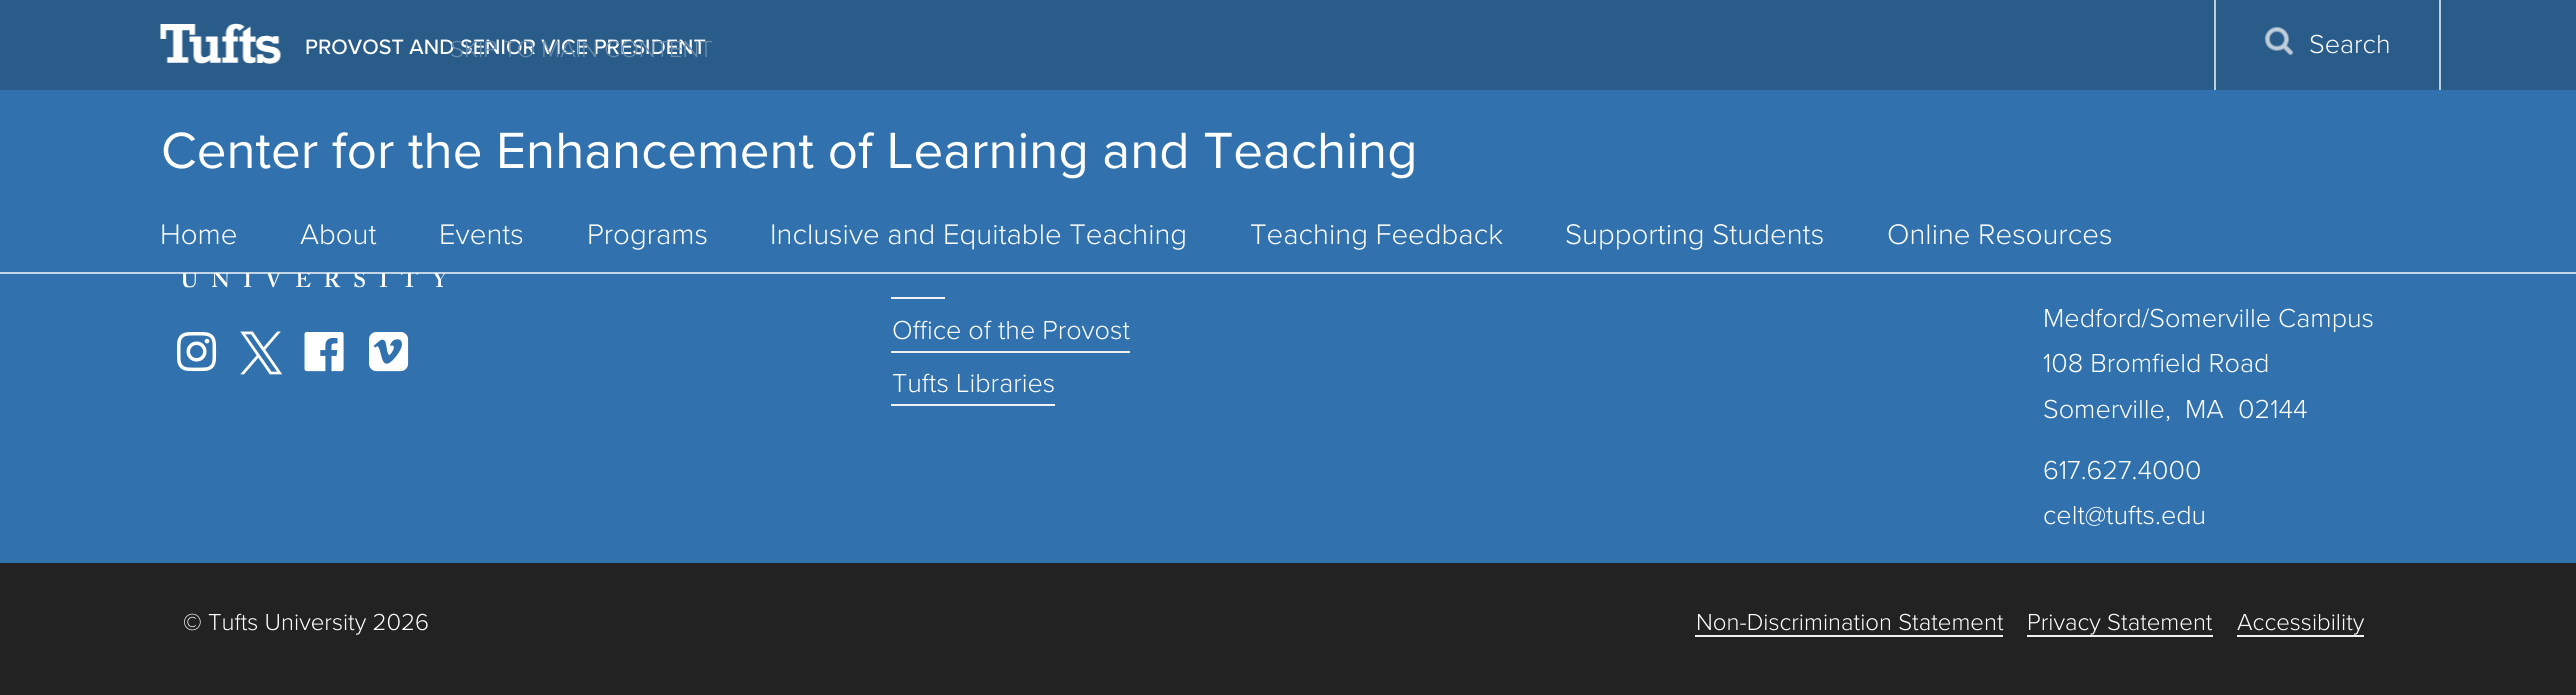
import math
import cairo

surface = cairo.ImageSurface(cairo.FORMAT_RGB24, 2576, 695)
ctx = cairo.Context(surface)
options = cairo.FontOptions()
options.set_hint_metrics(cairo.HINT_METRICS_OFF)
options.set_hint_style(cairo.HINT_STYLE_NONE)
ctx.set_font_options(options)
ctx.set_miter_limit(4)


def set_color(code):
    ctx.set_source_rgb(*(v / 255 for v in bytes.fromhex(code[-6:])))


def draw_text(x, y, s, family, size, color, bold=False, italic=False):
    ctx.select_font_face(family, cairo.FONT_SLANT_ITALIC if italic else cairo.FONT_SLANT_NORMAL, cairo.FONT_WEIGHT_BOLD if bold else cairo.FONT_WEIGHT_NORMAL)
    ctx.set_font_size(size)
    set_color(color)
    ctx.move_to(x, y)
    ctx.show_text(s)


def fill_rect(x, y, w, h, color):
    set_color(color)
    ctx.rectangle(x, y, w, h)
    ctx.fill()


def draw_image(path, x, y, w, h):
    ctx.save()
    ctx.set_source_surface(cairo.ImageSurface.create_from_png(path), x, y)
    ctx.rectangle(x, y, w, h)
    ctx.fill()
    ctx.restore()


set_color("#3172ae")
ctx.paint()
fill_rect(0, 0, 2576, 90, "#2a5c89")
draw_image("assets/img1.png", 160, 23, 121, 41)
draw_text(305, 54, "PROVOST AND SENIOR VICE PRESIDENT", "Proxima Nova Medium", 21.6, "#ffffff")
draw_text(450, 57, "SKIP TO MAIN CONTENT", "Proxima Nova Light", 24, "#6a8dac")
fill_rect(2439, 0, 2, 90, "#bfcedc")
fill_rect(2214, 0, 2, 90, "#bfcedc")
draw_image("assets/img2.png", 2264, 26, 30, 30)
draw_text(2309, 53, "Search", "Proxima Nova Light", 27, "#ffffff")
draw_text(160, 244, "Home", "Proxima Nova Light", 29.4, "#ffffff")
draw_text(300, 244, "About", "Proxima Nova Light", 29.4, "#ffffff")
draw_text(439, 244, "Events", "Proxima Nova Light", 29.4, "#ffffff")
draw_text(587, 244, "Programs", "Proxima Nova Light", 29.4, "#ffffff")
draw_text(770, 244, "Inclusive and Equitable Teaching", "Proxima Nova Light", 29.4, "#ffffff")
draw_text(1250, 244, "Teaching Feedback", "Proxima Nova Light", 29.4, "#ffffff")
draw_text(1565, 244, "Supporting Students", "Proxima Nova Light", 29.4, "#ffffff")
draw_text(1887, 244, "Online Resources", "Proxima Nova Light", 29.4, "#ffffff")
draw_image("assets/img3.png", 183, 273, 263, 15)
ctx.set_source_rgba(1, 1, 1, 0.7)
ctx.rectangle(0, 272, 2576, 2)
ctx.fill()
draw_text(161, 168, "Center for the Enhancement of Learning and Teaching", "Proxima Nova", 52.8, "#ffffff")
draw_image("assets/img4.png", 177, 332, 40, 40)
draw_image("assets/img5.png", 240, 331, 43, 44)
draw_image("assets/img6.png", 304, 332, 40, 40)
draw_image("assets/img7.png", 369, 332, 40, 40)
fill_rect(891, 297, 54, 2, "#f1f1f1")
draw_text(892, 339, "Office of the Provost", "Proxima Nova Light", 27, "#ffffff")
fill_rect(891, 351, 239, 2, "#f1f1f1")
draw_text(892, 392, "Tufts Libraries", "Proxima Nova Light", 27, "#ffffff")
fill_rect(891, 404, 164, 2, "#f1f1f1")
draw_text(2043, 327, "Medford/Somerville Campus", "Proxima Nova Light", 27, "#ffffff")
draw_text(2043, 372, "108 Bromfield Road", "Proxima Nova Light", 27, "#ffffff")
draw_text(2043, 418, "Somerville,", "Proxima Nova Light", 27, "#ffffff")
draw_text(2185, 418, "MA", "Proxima Nova Light", 27, "#ffffff")
draw_text(2238, 418, "02144", "Proxima Nova Light", 27, "#ffffff")
draw_text(2043, 479, "617.627.4000", "Proxima Nova Light", 27, "#ffffff")
draw_text(2043, 524, "celt@tufts.edu", "Proxima Nova Light", 27, "#ffffff")
fill_rect(0, 563, 2576, 132, "#222222")
draw_text(183, 630, "© Tufts University 2026", "Proxima Nova Light", 24, "#ffffff")
fill_rect(1695, 635, 308, 2, "#f1f1f1")
draw_text(1696, 630, "Non-Discrimination Statement", "Proxima Nova Light", 24, "#ffffff")
fill_rect(2027, 635, 186, 2, "#f1f1f1")
draw_text(2027, 630, "Privacy Statement", "Proxima Nova Light", 24, "#ffffff")
fill_rect(2237, 635, 127, 2, "#f1f1f1")
draw_text(2237, 630, "Accessibility", "Proxima Nova Light", 24, "#ffffff")
surface.write_to_png("output.png")
